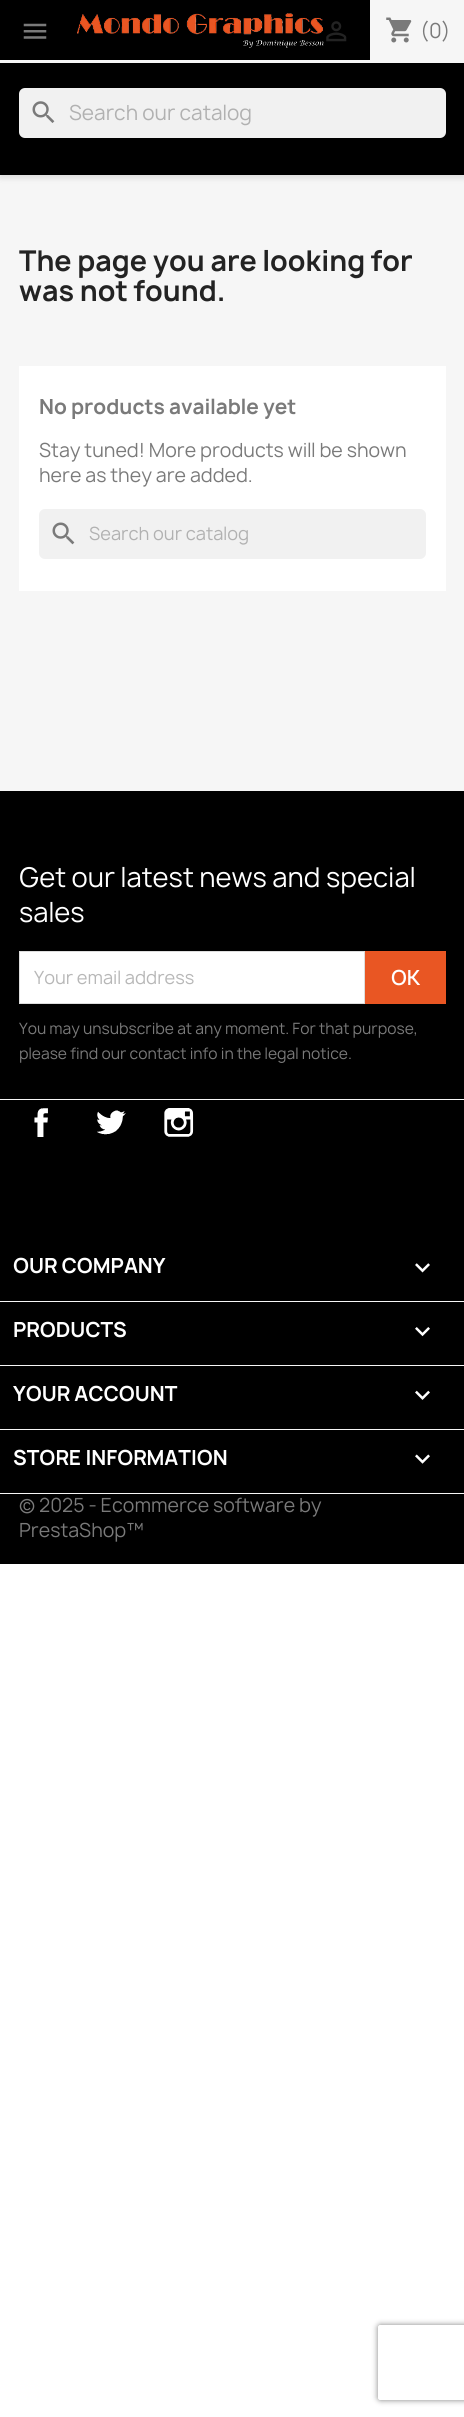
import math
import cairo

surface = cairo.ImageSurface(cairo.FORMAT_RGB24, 464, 2417)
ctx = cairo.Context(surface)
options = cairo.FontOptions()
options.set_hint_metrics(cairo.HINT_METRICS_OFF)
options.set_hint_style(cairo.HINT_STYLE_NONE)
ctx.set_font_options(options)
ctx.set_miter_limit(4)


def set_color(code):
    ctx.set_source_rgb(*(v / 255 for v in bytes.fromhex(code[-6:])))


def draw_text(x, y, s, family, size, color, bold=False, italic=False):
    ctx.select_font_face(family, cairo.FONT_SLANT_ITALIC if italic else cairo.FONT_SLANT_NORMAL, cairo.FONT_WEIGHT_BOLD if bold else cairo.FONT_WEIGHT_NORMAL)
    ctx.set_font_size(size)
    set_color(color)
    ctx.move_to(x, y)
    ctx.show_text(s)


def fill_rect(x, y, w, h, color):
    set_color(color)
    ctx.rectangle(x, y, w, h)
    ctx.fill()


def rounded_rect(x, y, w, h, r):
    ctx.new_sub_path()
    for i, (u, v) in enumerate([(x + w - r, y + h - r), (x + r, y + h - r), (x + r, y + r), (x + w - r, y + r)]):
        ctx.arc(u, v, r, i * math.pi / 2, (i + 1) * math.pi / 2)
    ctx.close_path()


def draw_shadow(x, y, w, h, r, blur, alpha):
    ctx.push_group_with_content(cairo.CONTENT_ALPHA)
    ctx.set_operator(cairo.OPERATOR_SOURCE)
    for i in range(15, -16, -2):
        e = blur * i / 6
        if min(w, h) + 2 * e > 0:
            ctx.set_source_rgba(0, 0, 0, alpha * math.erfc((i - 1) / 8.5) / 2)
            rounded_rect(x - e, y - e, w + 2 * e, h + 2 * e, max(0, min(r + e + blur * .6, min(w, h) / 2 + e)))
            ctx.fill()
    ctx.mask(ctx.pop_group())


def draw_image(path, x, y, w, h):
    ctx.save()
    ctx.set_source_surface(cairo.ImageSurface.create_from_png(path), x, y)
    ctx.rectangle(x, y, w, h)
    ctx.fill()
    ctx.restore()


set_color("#ffffff")
ctx.paint()
fill_rect(0, 175, 464, 616, "#f6f6f6")
set_color("#000000")
draw_shadow(0, 3, 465, 175, 0, 3, 0.11)
fill_rect(0, 0, 464, 175, "#000000")
fill_rect(0, 60, 464, 3, "#f6f6f6")
draw_image("assets/img1.png", 23, 23, 24, 16)
draw_image("assets/img2.png", 77, 13, 247, 35)
draw_image("assets/img3.png", 326, 21, 21, 21)
fill_rect(370, 0, 94, 60, "#f6f6f6")
draw_image("assets/img4.png", 386, 17, 26, 26)
draw_text(420, 38, "(0)", "Manrope", 20, "#7a7a7a")
set_color("#f1f1f1")
rounded_rect(19, 88, 427, 50, 6)
ctx.fill()
draw_image("assets/img5.png", 32, 101, 23, 22)
draw_text(69, 120, "Search our catalog", "Manrope", 20, "#b1b1b1")
draw_text(19, 271, "The page you are looking for", "Manrope", 27.5, "#232323", bold=True)
draw_text(19, 301, "was not found.", "Manrope", 27.5, "#232323", bold=True)
fill_rect(19, 366, 427, 225, "#ffffff")
draw_text(39, 414, "No products available yet", "Manrope", 20, "#7a7a7a", bold=True)
draw_text(39, 457, "Stay tuned! More products will be shown", "Manrope", 18.75, "#7a7a7a")
draw_text(39, 482, "here as they are added.", "Manrope", 18.75, "#7a7a7a")
set_color("#f1f1f1")
rounded_rect(39, 509, 387, 50, 6)
ctx.fill()
draw_image("assets/img6.png", 52, 522, 23, 23)
draw_text(89, 540, "Search our catalog", "Manrope", 17.5, "#b1b1b1")
fill_rect(0, 791, 464, 773, "#000000")
fill_rect(0, 1099, 464, 1, "#f6f6f6")
draw_text(19, 887, "Get our latest news and special", "Manrope", 26.25, "#ffffff")
draw_text(19, 922, "sales", "Manrope", 26.25, "#ffffff")
ctx.rectangle(19.5, 951.5, 345, 52)
ctx.fill_preserve()
set_color("#dddddd")
ctx.set_line_width(1)
ctx.stroke()
draw_text(34, 984, "Your email address", "Manrope", 17.5, "#b7b7b7")
fill_rect(365, 951, 81, 53, "#e95623")
draw_text(391, 985, "OK", "Manrope SemiBold", 20, "#ffffff")
draw_text(19, 1034, "You may unsubscribe at any moment. For that purpose,", "Manrope", 15, "#7a7a7a")
draw_text(19, 1059, "please find our contact info in the legal notice.", "Manrope", 15, "#7a7a7a")
draw_image("assets/img7.png", 34, 1108, 14, 29)
draw_image("assets/img8.png", 97, 1110, 29, 25)
draw_image("assets/img9.png", 164, 1108, 30, 29)
fill_rect(0, 1301, 464, 1, "#f6f6f6")
draw_text(13, 1273, "OUR COMPANY", "Manrope", 20, "#ffffff", bold=True)
draw_image("assets/img10.png", 415, 1263, 15, 10)
fill_rect(0, 1365, 464, 1, "#f6f6f6")
draw_text(13, 1337, "PRODUCTS", "Manrope", 20, "#ffffff", bold=True)
draw_image("assets/img11.png", 415, 1327, 15, 10)
fill_rect(0, 1429, 464, 1, "#f6f6f6")
draw_text(13, 1401, "YOUR ACCOUNT", "Manrope", 20, "#ffffff", bold=True)
draw_image("assets/img12.png", 415, 1390, 15, 10)
fill_rect(0, 1493, 464, 1, "#f6f6f6")
draw_text(13, 1465, "STORE INFORMATION", "Manrope", 20, "#ffffff", bold=True)
draw_image("assets/img13.png", 415, 1454, 15, 10)
draw_text(19, 1512, "© 2025 - Ecommerce software by", "Manrope", 18.75, "#7a7a7a")
draw_text(19, 1537, "PrestaShop™", "Manrope", 18.75, "#7a7a7a")
ctx.save()
ctx.set_fill_rule(cairo.FILL_RULE_EVEN_ODD)
ctx.new_path()
ctx.move_to(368, 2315)
ctx.line_to(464, 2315)
ctx.line_to(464, 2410)
ctx.line_to(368, 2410)
ctx.close_path()
ctx.move_to(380.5, 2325)
ctx.line_to(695.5, 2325)
ctx.curve_to(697, 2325, 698, 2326, 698, 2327.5)
ctx.line_to(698, 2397.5)
ctx.curve_to(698, 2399, 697, 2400, 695.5, 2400)
ctx.line_to(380.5, 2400)
ctx.curve_to(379, 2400, 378, 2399, 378, 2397.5)
ctx.line_to(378, 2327.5)
ctx.curve_to(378, 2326, 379, 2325, 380.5, 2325)
ctx.close_path()
ctx.clip()
set_color("#808080")
draw_shadow(378, 2325, 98, 75, 2.5, 3, 1)
ctx.restore()
surface.write_to_png("output.png")
